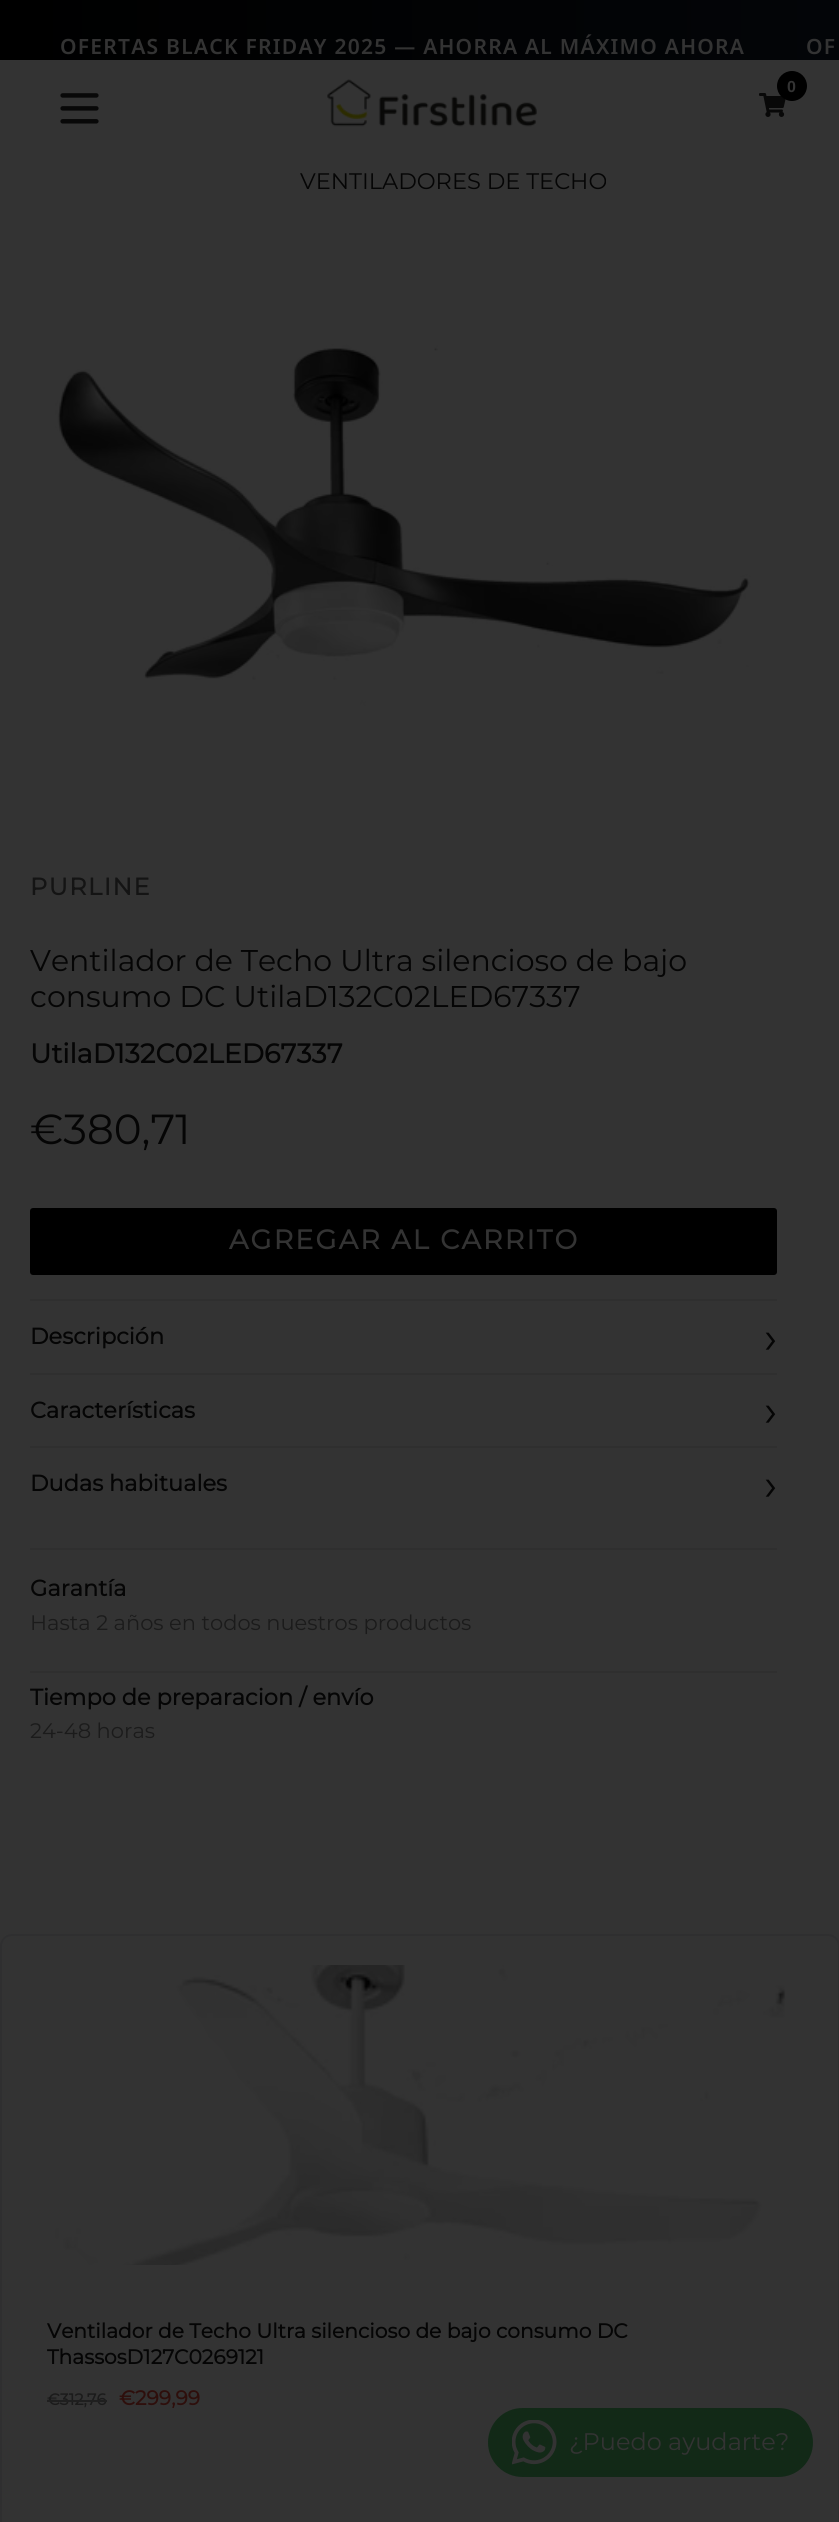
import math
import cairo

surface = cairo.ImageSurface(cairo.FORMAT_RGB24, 839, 2522)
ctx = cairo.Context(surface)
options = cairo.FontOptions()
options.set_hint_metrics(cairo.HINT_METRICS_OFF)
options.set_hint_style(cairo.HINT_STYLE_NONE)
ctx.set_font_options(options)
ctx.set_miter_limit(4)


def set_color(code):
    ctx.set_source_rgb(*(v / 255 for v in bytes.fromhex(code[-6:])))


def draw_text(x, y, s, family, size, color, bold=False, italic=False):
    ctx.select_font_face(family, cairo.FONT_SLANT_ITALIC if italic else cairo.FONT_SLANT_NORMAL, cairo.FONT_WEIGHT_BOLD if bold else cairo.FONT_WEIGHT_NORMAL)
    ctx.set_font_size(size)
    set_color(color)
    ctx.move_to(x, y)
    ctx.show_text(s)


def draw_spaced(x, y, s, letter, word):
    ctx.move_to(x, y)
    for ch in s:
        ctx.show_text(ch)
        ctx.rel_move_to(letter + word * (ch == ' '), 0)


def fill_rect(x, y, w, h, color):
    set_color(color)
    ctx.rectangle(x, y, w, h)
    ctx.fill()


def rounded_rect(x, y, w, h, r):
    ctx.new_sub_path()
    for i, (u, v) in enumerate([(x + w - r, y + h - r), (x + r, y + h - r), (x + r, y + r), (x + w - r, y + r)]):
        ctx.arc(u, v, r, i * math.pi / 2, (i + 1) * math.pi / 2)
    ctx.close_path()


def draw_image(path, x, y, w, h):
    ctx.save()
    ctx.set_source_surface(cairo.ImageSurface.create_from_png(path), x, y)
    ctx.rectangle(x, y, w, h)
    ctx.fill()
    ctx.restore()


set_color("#333333")
ctx.paint()
gradient = cairo.LinearGradient(0, 30, 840, 30)
gradient.add_color_stop_rgba(0, 0, 0, 0, 1)
gradient.add_color_stop_rgba(1, 0.012, 0.02, 0.031, 1)
ctx.set_source(gradient)
ctx.rectangle(0, 0, 839, 60)
ctx.fill()
ctx.select_font_face("Noto Sans SemiBold")
ctx.set_font_size(21)
set_color("#333333")
draw_spaced(60, 54, "OFERTAS BLACK FRIDAY 2025 — AHORRA AL MÁXIMO AHORA", 1.25, 0)
draw_spaced(806, 54, "OF", 1.25, 0)
draw_image("assets/img1.png", 327, 79, 210, 48)
draw_image("assets/img2.png", 759, 93, 27, 24)
set_color("#000000")
ctx.arc(792, 86, 15, 0, 2 * math.pi)
ctx.fill()
ctx.select_font_face("Liberation Sans", cairo.FONT_SLANT_NORMAL, cairo.FONT_WEIGHT_BOLD)
ctx.set_font_size(16)
set_color("#333333")
draw_spaced(787, 92, "0", 1.5, 0)
draw_image("assets/img3.png", 60, 93, 39, 31)
draw_text(300, 189, "VENTILADORES DE TECHO", "Montserrat Thin", 22.5, "#050505")
draw_image("assets/img4.png", 30, 245, 747, 563)
ctx.select_font_face("Montserrat", cairo.FONT_SLANT_NORMAL, cairo.FONT_WEIGHT_BOLD)
ctx.set_font_size(24)
set_color("#141414")
draw_spaced(30, 895, "PURLINE", 1.5, 0)
draw_text(30, 971, "Ventilador de Techo Ultra silencioso de bajo", "Montserrat Thin", 30, "#050505")
draw_text(30, 1007, "consumo DC UtilaD132C02LED67337", "Montserrat Thin", 30, "#050505")
draw_text(30, 1063, "UtilaD132C02LED67337", "Montserrat", 27, "#050505", bold=True)
draw_text(30, 1144, "€380,71", "Montserrat Thin", 42, "#050505")
set_color("#000000")
rounded_rect(30, 1208, 747, 67, 3)
ctx.fill()
ctx.select_font_face("Montserrat", cairo.FONT_SLANT_NORMAL, cairo.FONT_WEIGHT_BOLD)
ctx.set_font_size(27)
set_color("#333333")
draw_spaced(229, 1249, "AGREGAR AL CARRITO", 2.2, 0)
fill_rect(30, 1299, 747, 2, "#2f2f2f")
draw_text(30, 1344, "Descripción", "Montserrat", 22.5, "#050505", bold=True)
draw_text(764, 1353, "›", "Montserrat Thin", 45, "#050505")
fill_rect(30, 1373, 747, 2, "#2f2f2f")
draw_text(30, 1418, "Características", "Montserrat", 22.5, "#050505", bold=True)
draw_text(764, 1426, "›", "Montserrat Thin", 45, "#050505")
fill_rect(30, 1446, 747, 2, "#2f2f2f")
draw_text(30, 1491, "Dudas habituales", "Montserrat", 22.5, "#050505", bold=True)
draw_text(764, 1500, "›", "Montserrat Thin", 45, "#050505")
fill_rect(30, 1548, 747, 2, "#2f2f2f")
draw_text(30, 1596, "Garantía", "Montserrat", 22.5, "#050505", bold=True)
draw_text(30, 1630, "Hasta 2 años en todos nuestros productos", "Montserrat Thin", 21, "#1b1b1b")
fill_rect(30, 1671, 747, 2, "#2f2f2f")
draw_text(30, 1705, "Tiempo de preparacion / envío", "Montserrat", 22.5, "#050505", bold=True)
draw_text(30, 1738, "24-48 horas", "Montserrat Thin", 21, "#1b1b1b")
rounded_rect(1, 1935, 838, 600, 11)
set_color("#2f2f30")
ctx.stroke()
draw_image("assets/img5.png", 24, 1965, 792, 300)
draw_text(47, 2338, "Ventilador de Techo Ultra silencioso de bajo consumo DC", "Montserrat", 20.25, "#050505", bold=True)
draw_text(47, 2364, "ThassosD127C0269121", "Montserrat", 20.25, "#050505", bold=True)
draw_text(47, 2405, "€312,76", "Montserrat", 16, "#1b1b1b", bold=True)
fill_rect(47, 2400, 60, 2, "#1f1f1f")
draw_text(119, 2405, "€299,99", "Montserrat", 20.25, "#2e0f0c", bold=True)
set_color("#122917")
rounded_rect(488, 2408, 325, 69, 34.5)
ctx.fill()
draw_image("assets/img6.png", 512, 2420, 45, 45)
draw_text(569, 2450, "¿Puedo ayudarte?", "Montserrat Thin", 24, "#333333")
surface.write_to_png("output.png")
